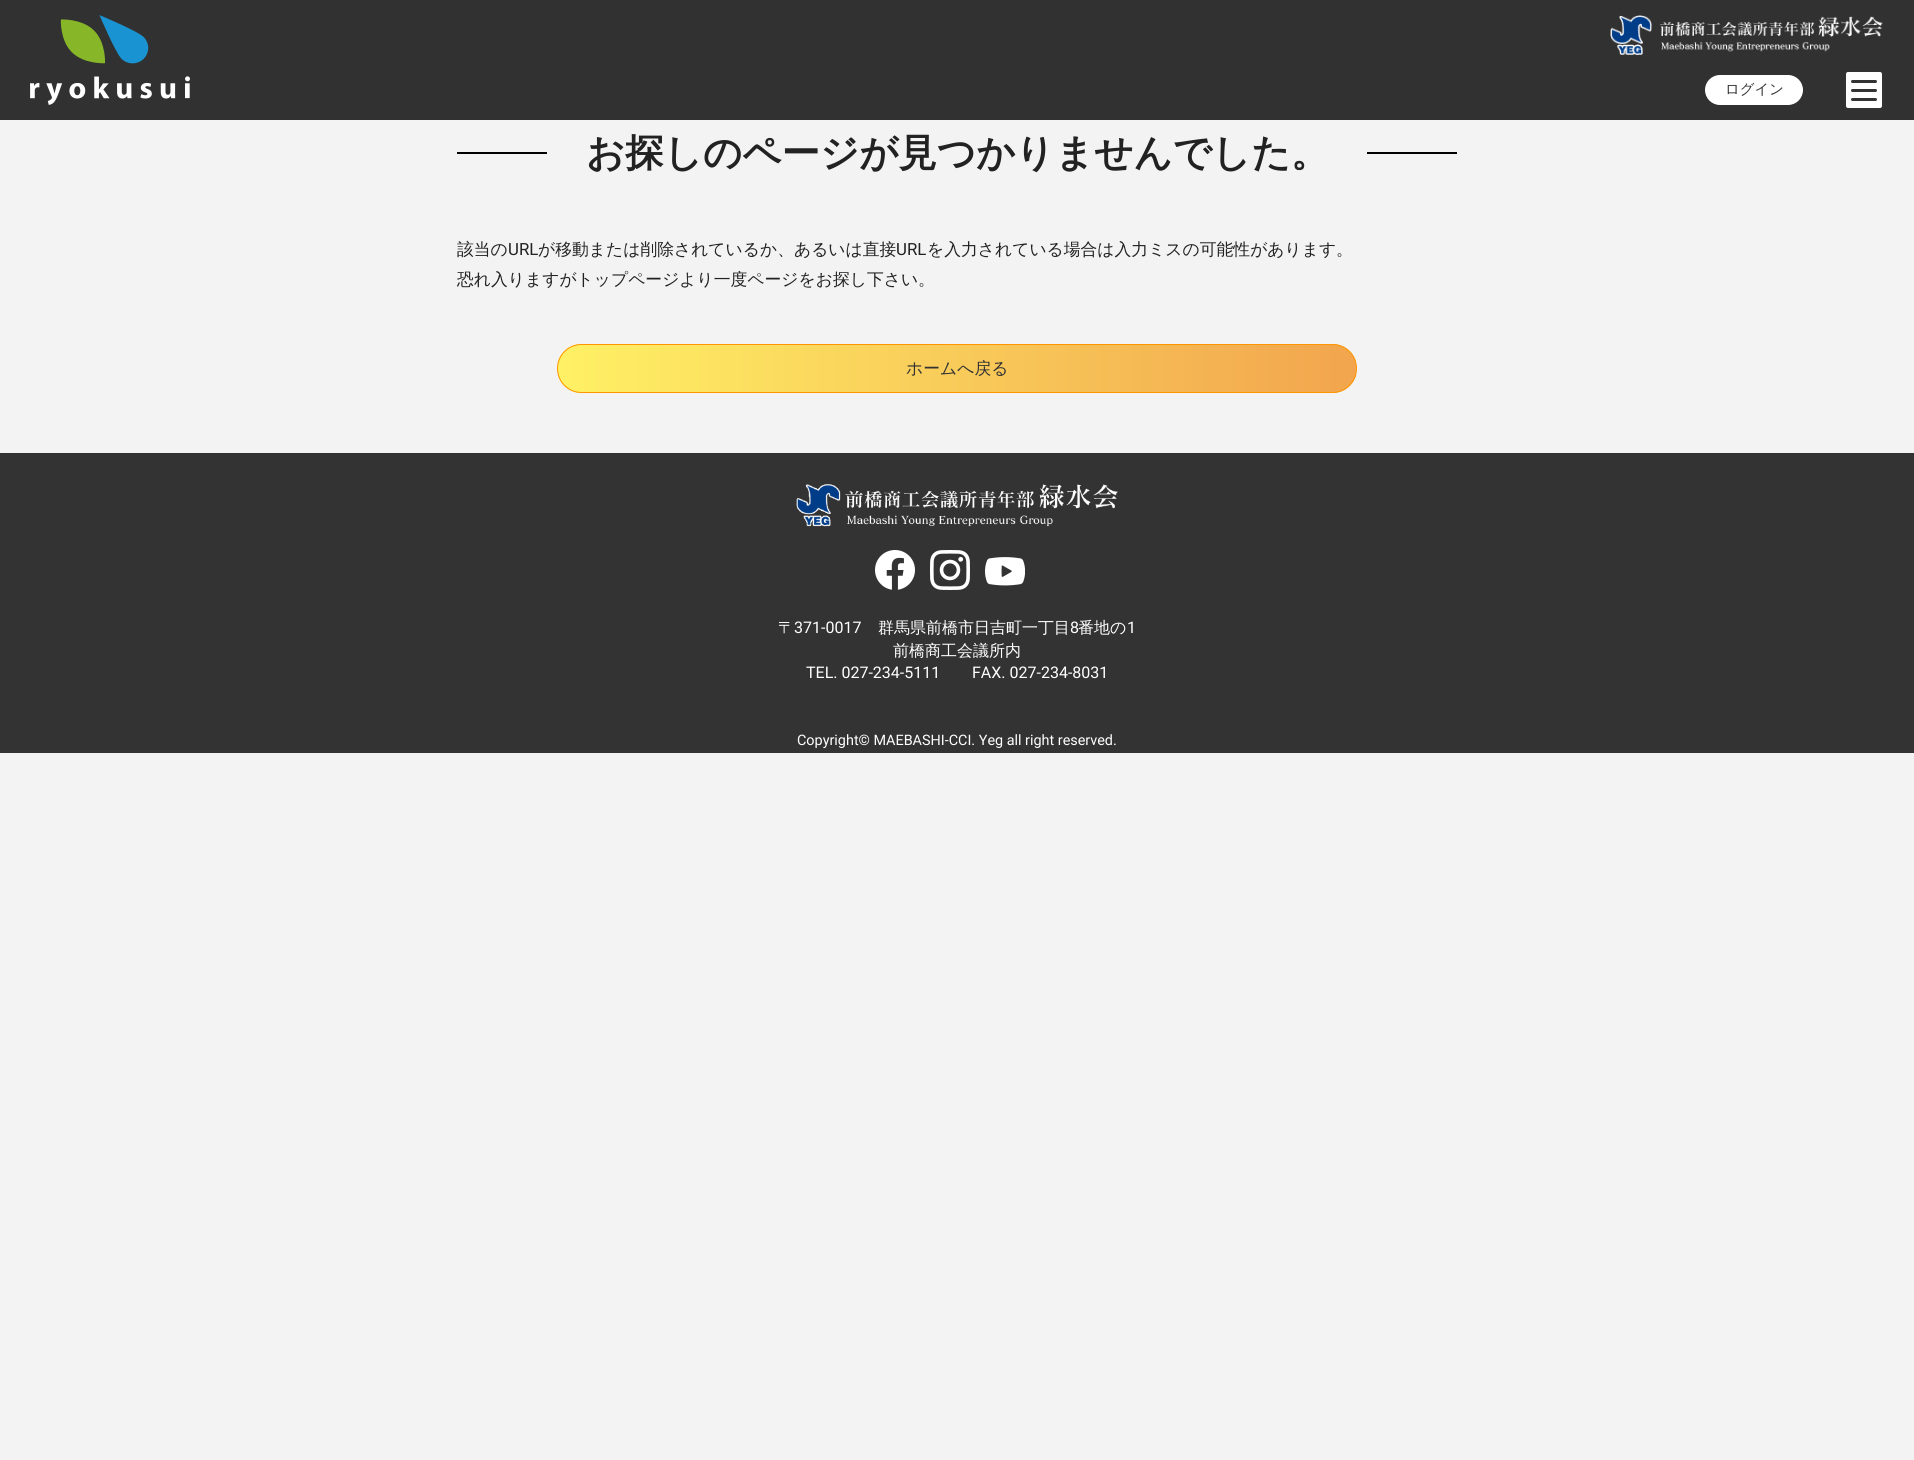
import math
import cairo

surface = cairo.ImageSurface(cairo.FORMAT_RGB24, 1914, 1460)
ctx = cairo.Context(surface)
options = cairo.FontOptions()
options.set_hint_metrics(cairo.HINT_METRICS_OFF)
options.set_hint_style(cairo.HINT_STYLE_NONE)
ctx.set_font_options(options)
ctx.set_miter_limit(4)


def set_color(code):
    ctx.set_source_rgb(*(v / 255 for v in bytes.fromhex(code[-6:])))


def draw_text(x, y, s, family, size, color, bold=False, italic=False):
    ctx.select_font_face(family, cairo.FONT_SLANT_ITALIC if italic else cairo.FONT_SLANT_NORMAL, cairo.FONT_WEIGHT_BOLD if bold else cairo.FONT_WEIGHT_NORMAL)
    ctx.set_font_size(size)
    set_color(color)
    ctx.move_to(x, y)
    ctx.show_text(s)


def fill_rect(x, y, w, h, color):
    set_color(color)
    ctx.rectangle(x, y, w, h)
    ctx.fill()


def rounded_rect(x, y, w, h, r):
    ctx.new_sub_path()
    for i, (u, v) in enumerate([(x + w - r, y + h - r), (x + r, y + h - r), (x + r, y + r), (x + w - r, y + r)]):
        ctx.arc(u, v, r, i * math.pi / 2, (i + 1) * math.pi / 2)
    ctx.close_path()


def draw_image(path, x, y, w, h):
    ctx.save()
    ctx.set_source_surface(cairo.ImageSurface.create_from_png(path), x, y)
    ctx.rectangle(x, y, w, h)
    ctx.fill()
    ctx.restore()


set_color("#f3f3f3")
ctx.paint()
fill_rect(0, 0, 1914, 120, "#313131")
draw_image("assets/img1.png", 30, 15, 160, 90)
draw_image("assets/img2.png", 1610, 15, 273, 40)
set_color("#ffffff")
rounded_rect(1705, 75, 98, 30, 15)
ctx.fill()
draw_text(1725, 94, "ログイン", "WenQuanYi Zen Hei Medium", 14.4, "#333333")
set_color("#ffffff")
rounded_rect(1845, 71, 38, 38, 3)
ctx.fill_preserve()
set_color("#333333")
ctx.stroke()
rounded_rect(1851, 80, 26, 3, 1.5)
ctx.fill()
rounded_rect(1851, 89, 26, 3, 1.5)
ctx.fill()
rounded_rect(1851, 98, 26, 3, 1.5)
ctx.fill()
fill_rect(457, 152, 1000, 2, "#000000")
fill_rect(547, 152, 820, 2, "#f3f3f3")
draw_text(586, 166, "お探しのページが見つかりませんでした。", "WenQuanYi Zen Hei", 38.4, "#222222", bold=True)
draw_text(457, 255, "該当の", "WenQuanYi Zen Hei Medium", 16.8, "#222222")
draw_text(508, 255, "URL", "Roboto", 16.8, "#222222")
draw_text(538, 255, "が移動または削除されているか、あるいは直接", "WenQuanYi Zen Hei Medium", 16.8, "#222222")
draw_text(896, 255, "URL", "Roboto", 16.8, "#222222")
draw_text(927, 255, "を入力されている場合は入力ミスの可能性があります。", "WenQuanYi Zen Hei Medium", 16.8, "#222222")
draw_text(457, 285, "恐れ入りますがトップページより一度ページをお探し下さい。", "WenQuanYi Zen Hei Medium", 16.8, "#222222")
ctx.save()
rounded_rect(557, 344, 800, 49, 24.5)
ctx.clip()
gradient = cairo.LinearGradient(558, 369, 1356, 369)
gradient.add_color_stop_rgba(0, 1, 0.945, 0.396, 1)
gradient.add_color_stop_rgba(1, 0.949, 0.647, 0.306, 1)
ctx.set_source(gradient)
ctx.rectangle(558, 344, 798, 49)
ctx.fill()
ctx.restore()
rounded_rect(557.5, 344.5, 799, 48, 24)
set_color("#ff9600")
ctx.set_line_width(1)
ctx.stroke()
draw_text(906, 374, "ホームへ戻る", "WenQuanYi Zen Hei Medium", 16.8, "#333333")
fill_rect(0, 453, 1914, 300, "#333333")
draw_image("assets/img3.png", 796, 484, 322, 43)
draw_image("assets/img4.png", 875, 550, 40, 40)
draw_image("assets/img5.png", 930, 550, 40, 40)
draw_image("assets/img6.png", 985, 557, 40, 29)
draw_text(778, 633, "〒", "WenQuanYi Zen Hei Medium", 16, "#ffffff")
draw_text(794, 633, "371-0017", "Roboto", 16, "#ffffff")
draw_text(878, 633, "群馬県前橋市日吉町一丁目", "WenQuanYi Zen Hei Medium", 16, "#ffffff")
draw_text(1070, 633, "8", "Roboto", 16, "#ffffff")
draw_text(1078, 633, "番地の", "WenQuanYi Zen Hei Medium", 16, "#ffffff")
draw_text(1127, 633, "1", "Roboto", 16, "#ffffff")
draw_text(893, 656, "前橋商工会議所内", "WenQuanYi Zen Hei Medium", 16, "#ffffff")
draw_text(806, 678, "TEL. 027-234-5111", "Roboto", 16, "#ffffff")
draw_text(972, 678, "FAX. 027-234-8031", "Roboto", 16, "#ffffff")
draw_text(797, 745, "Copyright© MAEBASHI-CCI. Yeg all right reserved.", "Roboto", 14.4, "#ffffff")
surface.write_to_png("output.png")
